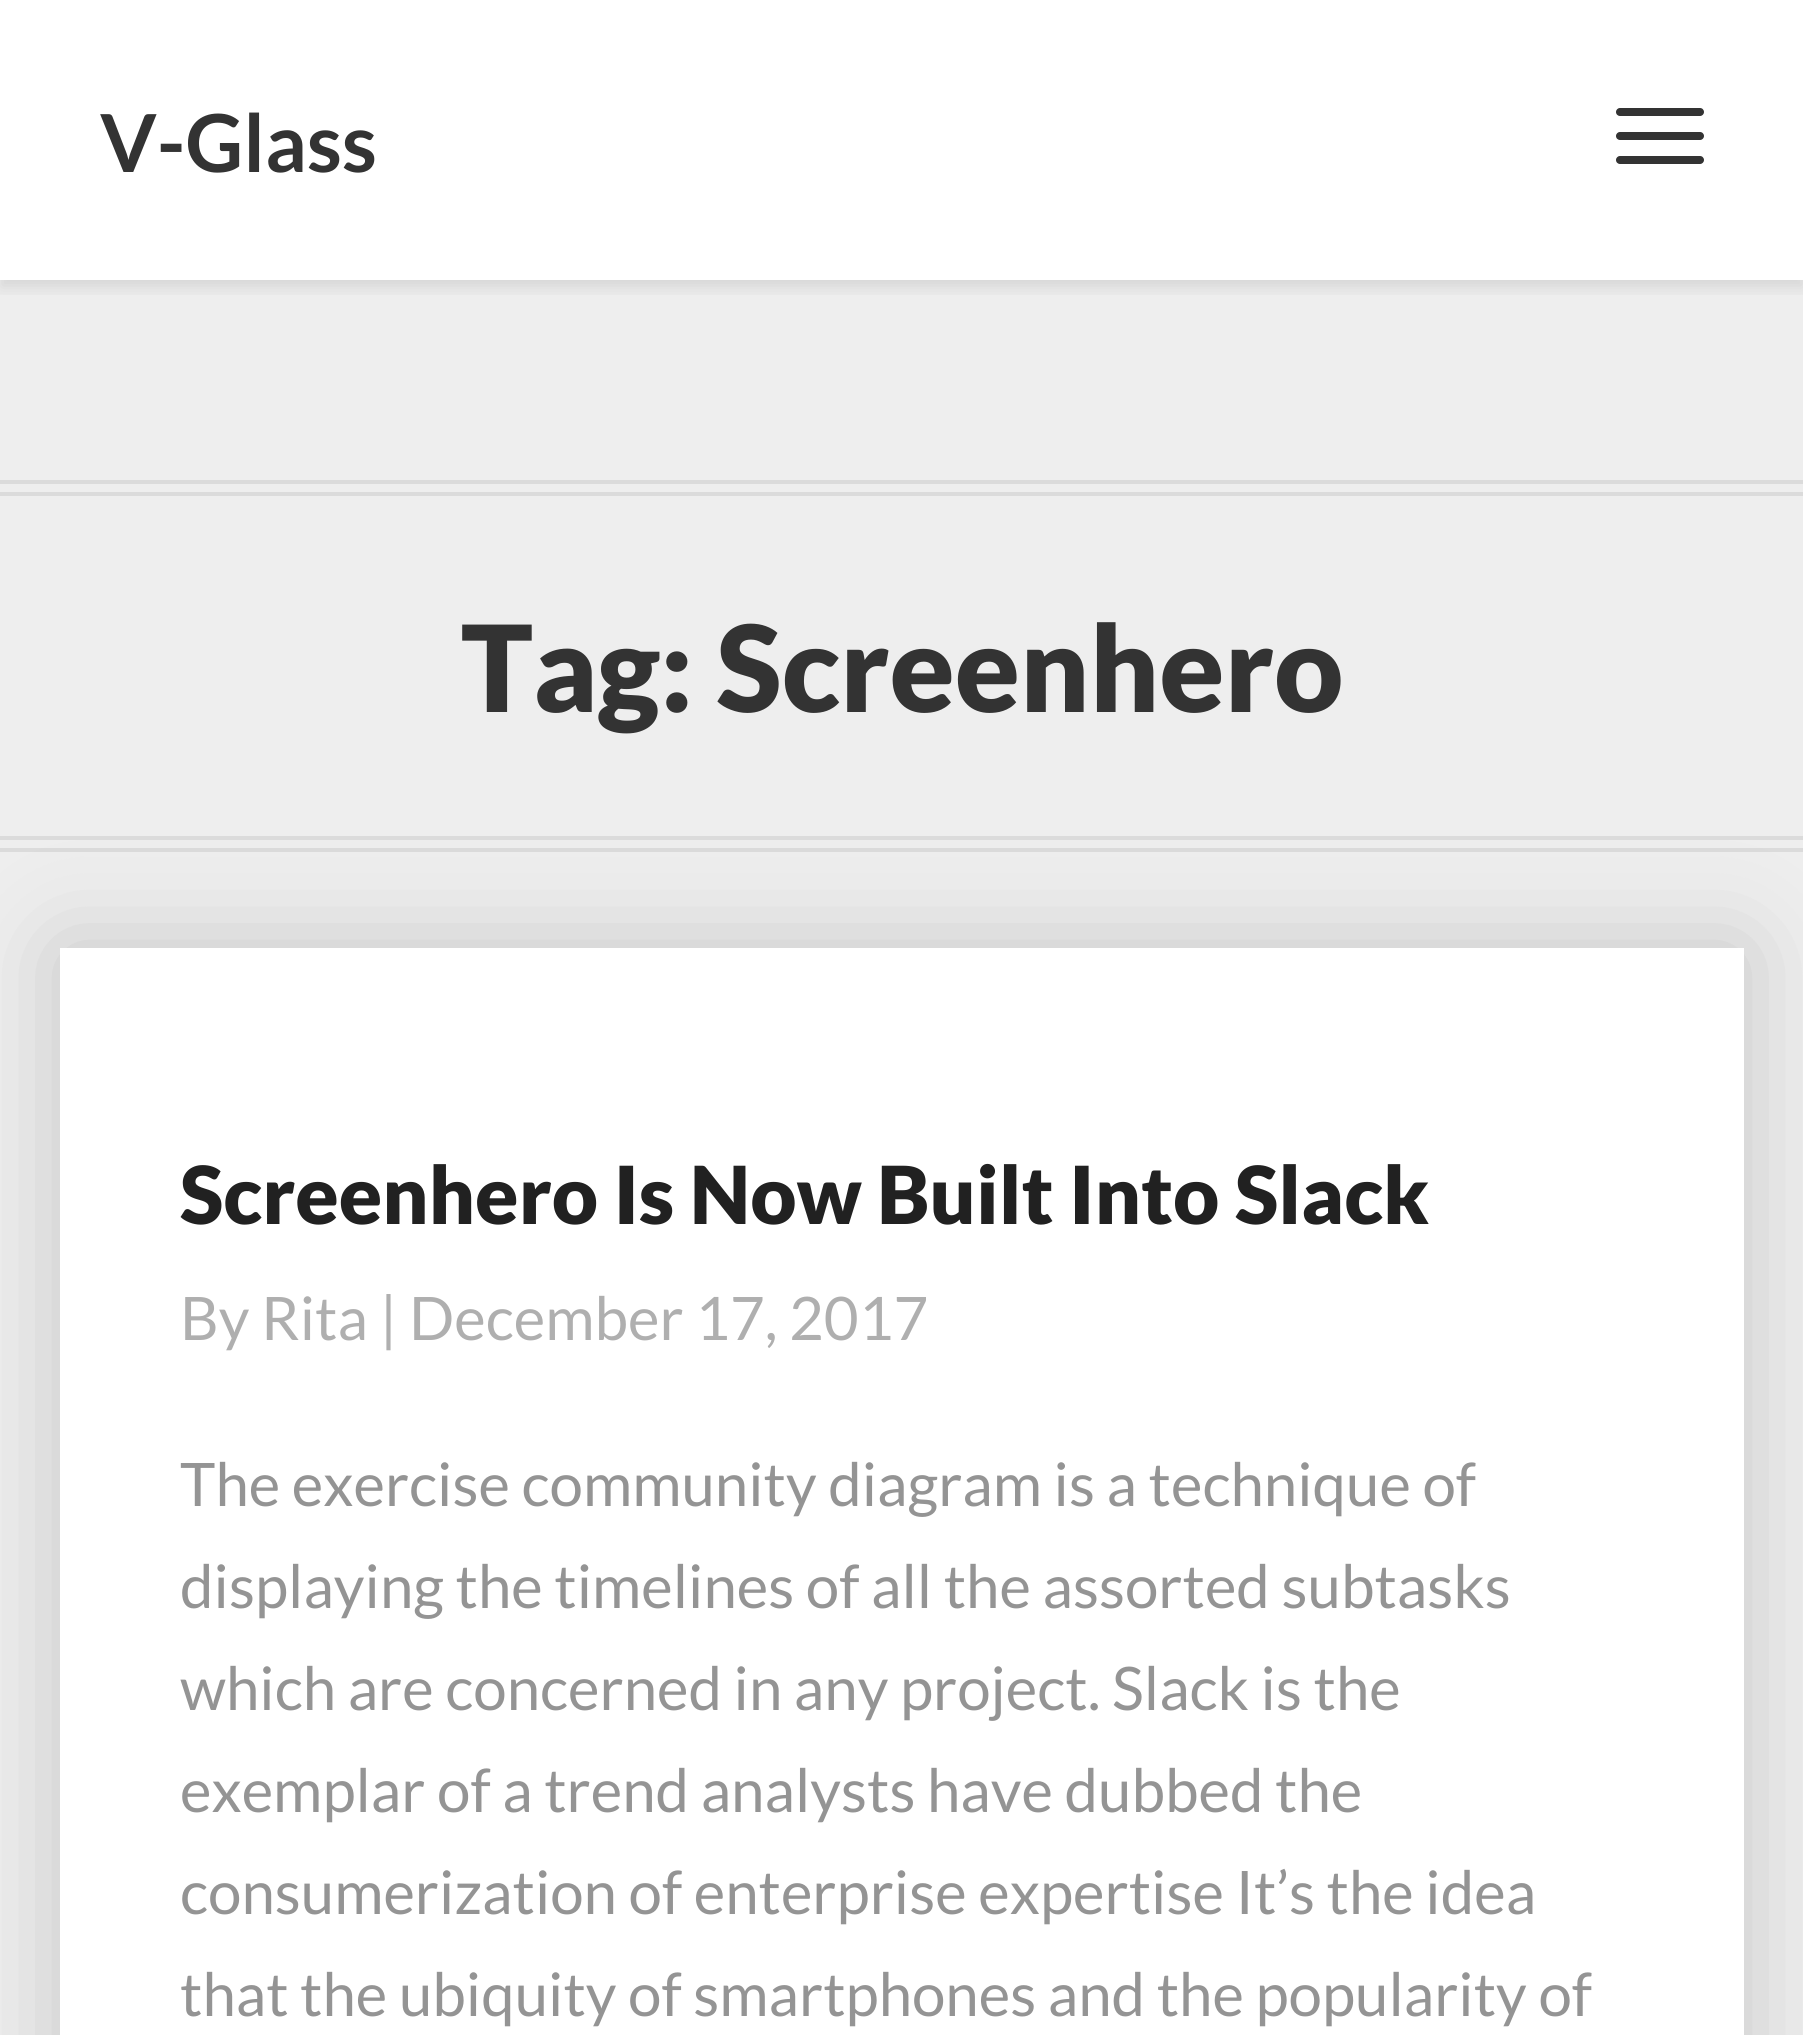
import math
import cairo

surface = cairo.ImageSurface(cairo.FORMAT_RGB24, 1803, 2035)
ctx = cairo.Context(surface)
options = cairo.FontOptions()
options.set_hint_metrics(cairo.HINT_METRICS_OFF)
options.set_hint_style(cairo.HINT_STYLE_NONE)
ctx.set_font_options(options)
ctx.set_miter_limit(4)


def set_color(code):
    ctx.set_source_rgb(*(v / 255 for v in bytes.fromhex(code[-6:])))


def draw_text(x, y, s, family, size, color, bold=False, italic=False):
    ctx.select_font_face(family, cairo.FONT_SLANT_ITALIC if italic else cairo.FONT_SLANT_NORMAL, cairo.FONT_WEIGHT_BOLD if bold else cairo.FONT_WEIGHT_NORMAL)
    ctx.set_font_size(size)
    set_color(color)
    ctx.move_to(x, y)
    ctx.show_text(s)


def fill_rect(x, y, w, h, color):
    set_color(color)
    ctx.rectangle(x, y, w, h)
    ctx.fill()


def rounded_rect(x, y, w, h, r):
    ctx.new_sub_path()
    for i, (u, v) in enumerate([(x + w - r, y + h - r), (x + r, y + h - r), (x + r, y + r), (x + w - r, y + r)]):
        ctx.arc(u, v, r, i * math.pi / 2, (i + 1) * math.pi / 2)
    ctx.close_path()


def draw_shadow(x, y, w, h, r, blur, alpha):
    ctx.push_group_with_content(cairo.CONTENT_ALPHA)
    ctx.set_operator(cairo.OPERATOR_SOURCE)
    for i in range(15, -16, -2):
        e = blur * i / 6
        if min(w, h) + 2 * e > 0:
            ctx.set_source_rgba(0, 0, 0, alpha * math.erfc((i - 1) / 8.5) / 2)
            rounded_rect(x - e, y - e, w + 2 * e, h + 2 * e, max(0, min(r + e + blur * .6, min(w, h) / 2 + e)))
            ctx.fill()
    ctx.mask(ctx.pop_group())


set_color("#eeeeee")
ctx.paint()
fill_rect(0, 0, 1803, 280, "#ffffff")
ctx.save()
ctx.rectangle(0, 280, 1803, 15)
ctx.clip()
set_color("#000000")
draw_shadow(0, 8, 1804, 280, 0, 8, 0.1)
ctx.restore()
draw_text(100, 172, "V-Glass", "Lato", 80, "#333333", bold=True)
rounded_rect(1616, 108, 88, 8, 4)
ctx.fill()
rounded_rect(1616, 132, 88, 8, 4)
ctx.fill()
rounded_rect(1616, 156, 88, 8, 4)
ctx.fill()
fill_rect(0, 480, 1803, 4, "#dbdbdb")
fill_rect(0, 492, 1803, 4, "#dbdbdb")
fill_rect(0, 836, 1803, 4, "#dbdbdb")
fill_rect(0, 848, 1803, 4, "#dbdbdb")
draw_text(461, 712, "Tag: Screenhero", "Lato Black", 120, "#333333")
set_color("#000000")
draw_shadow(60, 948, 1684, 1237, 0, 50, 0.17)
fill_rect(60, 948, 1684, 1087, "#ffffff")
draw_text(180, 1224, "Screenhero Is Now Built Into Slack", "Lato Black", 80, "#212121")
draw_text(180, 1340, "By Rita | December 17, 2017", "Lato", 60, "#afafaf")
draw_text(180, 1506, "The exercise community diagram is a technique of", "Lato", 60, "#949494")
draw_text(180, 1608, "displaying the timelines of all the assorted subtasks", "Lato", 60, "#949494")
draw_text(180, 1710, "which are concerned in any project. Slack is the", "Lato", 60, "#949494")
draw_text(180, 1812, "exemplar of a trend analysts have dubbed the", "Lato", 60, "#949494")
draw_text(180, 1914, "consumerization of enterprise expertise It’s the idea", "Lato", 60, "#949494")
draw_text(180, 2016, "that the ubiquity of smartphones and the popularity of", "Lato", 60, "#949494")
surface.write_to_png("output.png")
